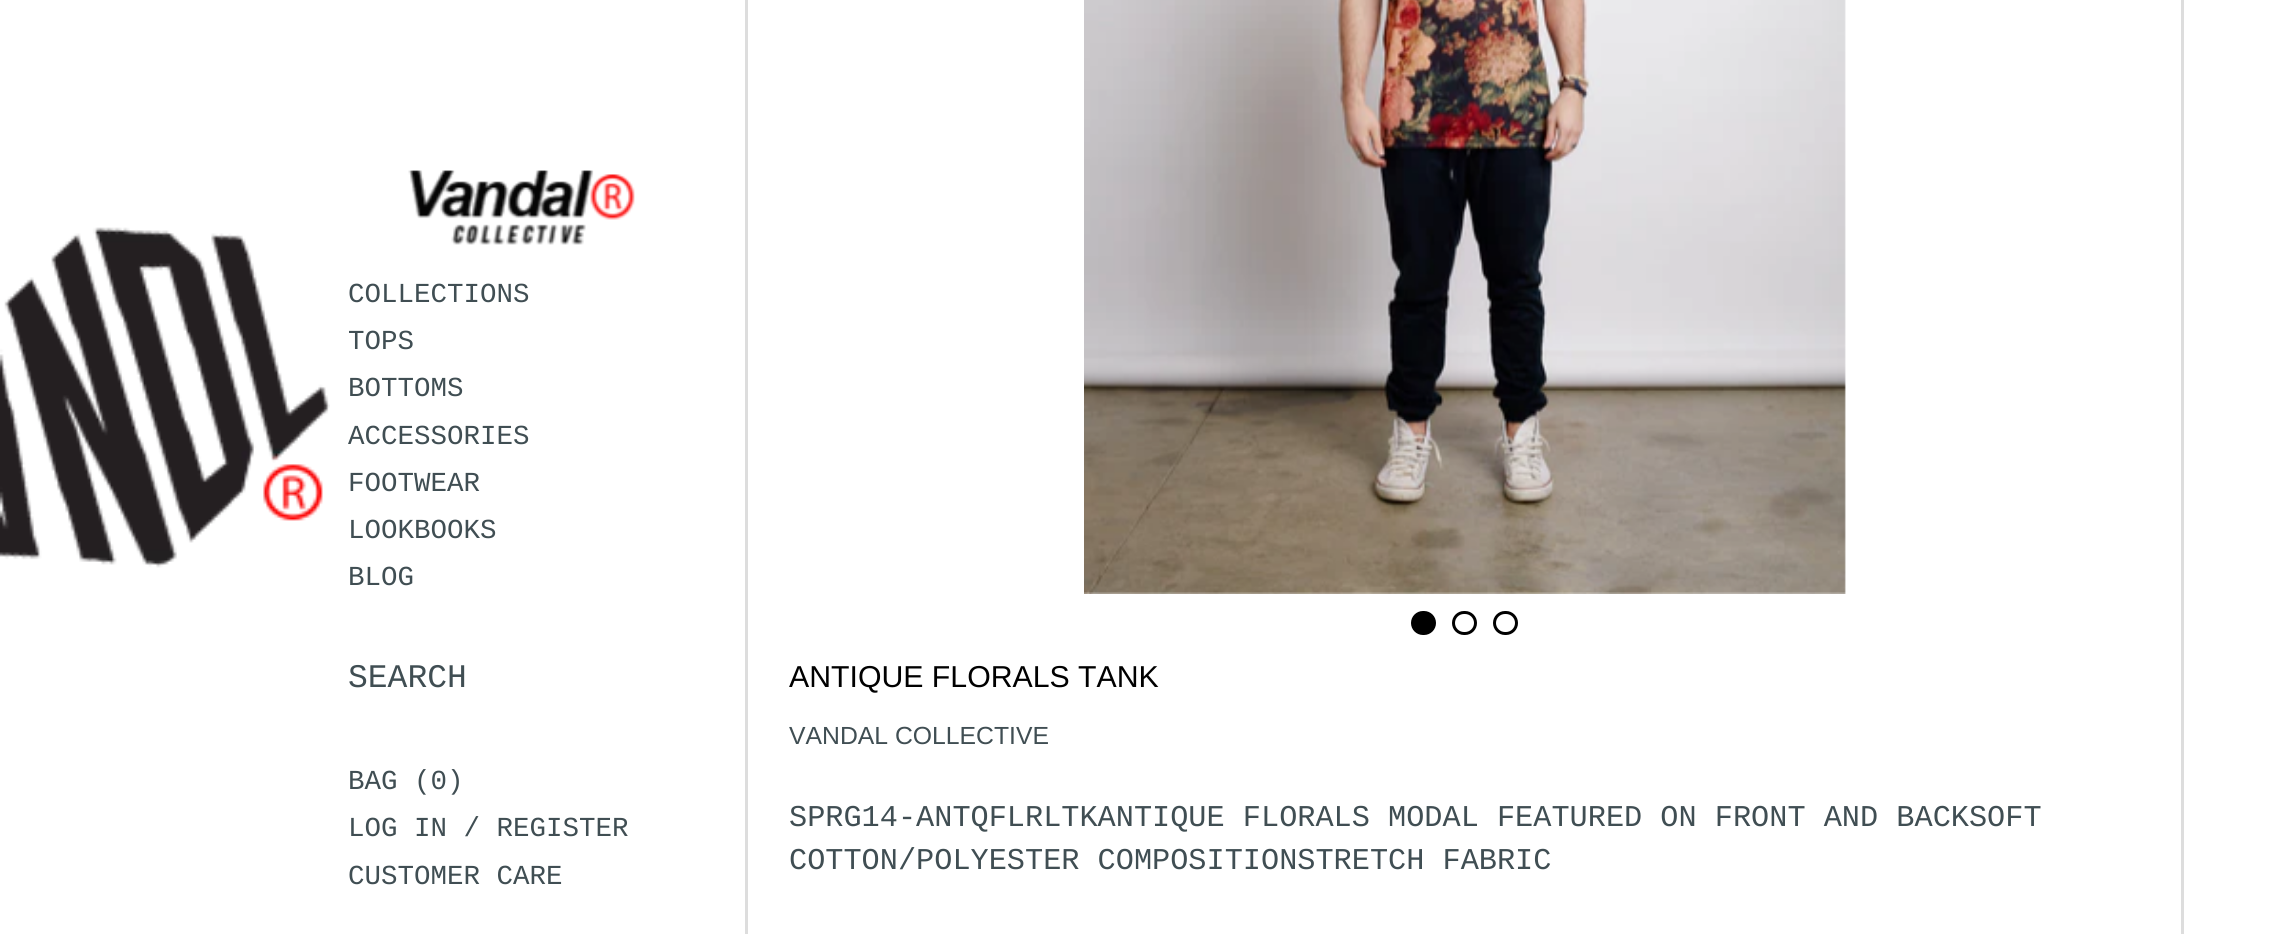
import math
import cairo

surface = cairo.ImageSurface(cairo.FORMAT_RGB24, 2284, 934)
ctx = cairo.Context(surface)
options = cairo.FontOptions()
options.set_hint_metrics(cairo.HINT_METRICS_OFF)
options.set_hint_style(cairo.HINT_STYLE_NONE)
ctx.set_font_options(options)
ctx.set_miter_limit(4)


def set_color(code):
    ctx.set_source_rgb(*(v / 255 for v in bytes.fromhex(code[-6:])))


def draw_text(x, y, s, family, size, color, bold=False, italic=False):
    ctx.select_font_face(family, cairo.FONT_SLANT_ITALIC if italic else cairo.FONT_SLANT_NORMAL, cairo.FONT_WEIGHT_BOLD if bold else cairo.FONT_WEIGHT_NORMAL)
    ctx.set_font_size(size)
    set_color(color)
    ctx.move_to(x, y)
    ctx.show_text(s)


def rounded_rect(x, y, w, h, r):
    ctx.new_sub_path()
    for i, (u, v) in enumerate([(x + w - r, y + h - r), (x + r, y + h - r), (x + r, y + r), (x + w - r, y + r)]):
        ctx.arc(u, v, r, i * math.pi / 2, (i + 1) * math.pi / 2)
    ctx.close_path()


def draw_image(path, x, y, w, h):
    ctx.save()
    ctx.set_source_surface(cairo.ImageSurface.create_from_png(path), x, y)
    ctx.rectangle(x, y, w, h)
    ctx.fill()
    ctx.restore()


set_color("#ffffff")
ctx.paint()
draw_image("assets/img1.png", 0, 227, 330, 341)
draw_image("assets/img2.png", 408, 170, 227, 75)
draw_text(348, 302, "COLLECTIONS", "Liberation Mono", 27.5, "#404e53")
draw_text(348, 349, "TOPS", "Liberation Mono", 27.5, "#404e53")
draw_text(348, 396, "BOTTOMS", "Liberation Mono", 27.5, "#404e53")
draw_text(348, 444, "ACCESSORIES", "Liberation Mono", 27.5, "#404e53")
draw_text(348, 491, "FOOTWEAR", "Liberation Mono", 27.5, "#404e53")
draw_text(348, 538, "LOOKBOOKS", "Liberation Mono", 27.5, "#404e53")
draw_text(348, 585, "BLOG", "Liberation Mono", 27.5, "#404e53")
draw_text(348, 687, "SEARCH", "Liberation Mono", 33, "#404e53")
draw_text(348, 789, "BAG (0)", "Liberation Mono", 27.5, "#404e53")
draw_text(348, 836, "LOG IN / REGISTER", "Liberation Mono", 27.5, "#404e53")
draw_text(348, 884, "CUSTOMER CARE", "Liberation Mono", 27.5, "#404e53")
ctx.rectangle(746.5, -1.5, 1436, 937)
set_color("#dddddd")
ctx.set_line_width(3)
ctx.stroke()
draw_image("assets/img3.png", 1084, 0, 762, 594)
set_color("#000000")
rounded_rect(1412.5, 612.5, 22, 21, 10.5)
ctx.fill_preserve()
ctx.stroke()
rounded_rect(1453.5, 612.5, 22, 21, 10.5)
ctx.stroke()
rounded_rect(1494.5, 612.5, 22, 21, 10.5)
ctx.stroke()
draw_text(789, 687, "ANTIQUE FLORALS TANK", "Liberation Sans", 30.25, "#000000")
draw_text(789, 744, "VANDAL COLLECTIVE", "Liberation Sans", 24.75, "#404e53")
draw_text(789, 826, "SPRG14-ANTQFLRLTKANTIQUE FLORALS MODAL FEATURED ON FRONT AND BACKSOFT", "Liberation Mono", 30.25, "#404e53")
draw_text(789, 869, "COTTON/POLYESTER COMPOSITIONSTRETCH FABRIC", "Liberation Mono", 30.25, "#404e53")
surface.write_to_png("output.png")
